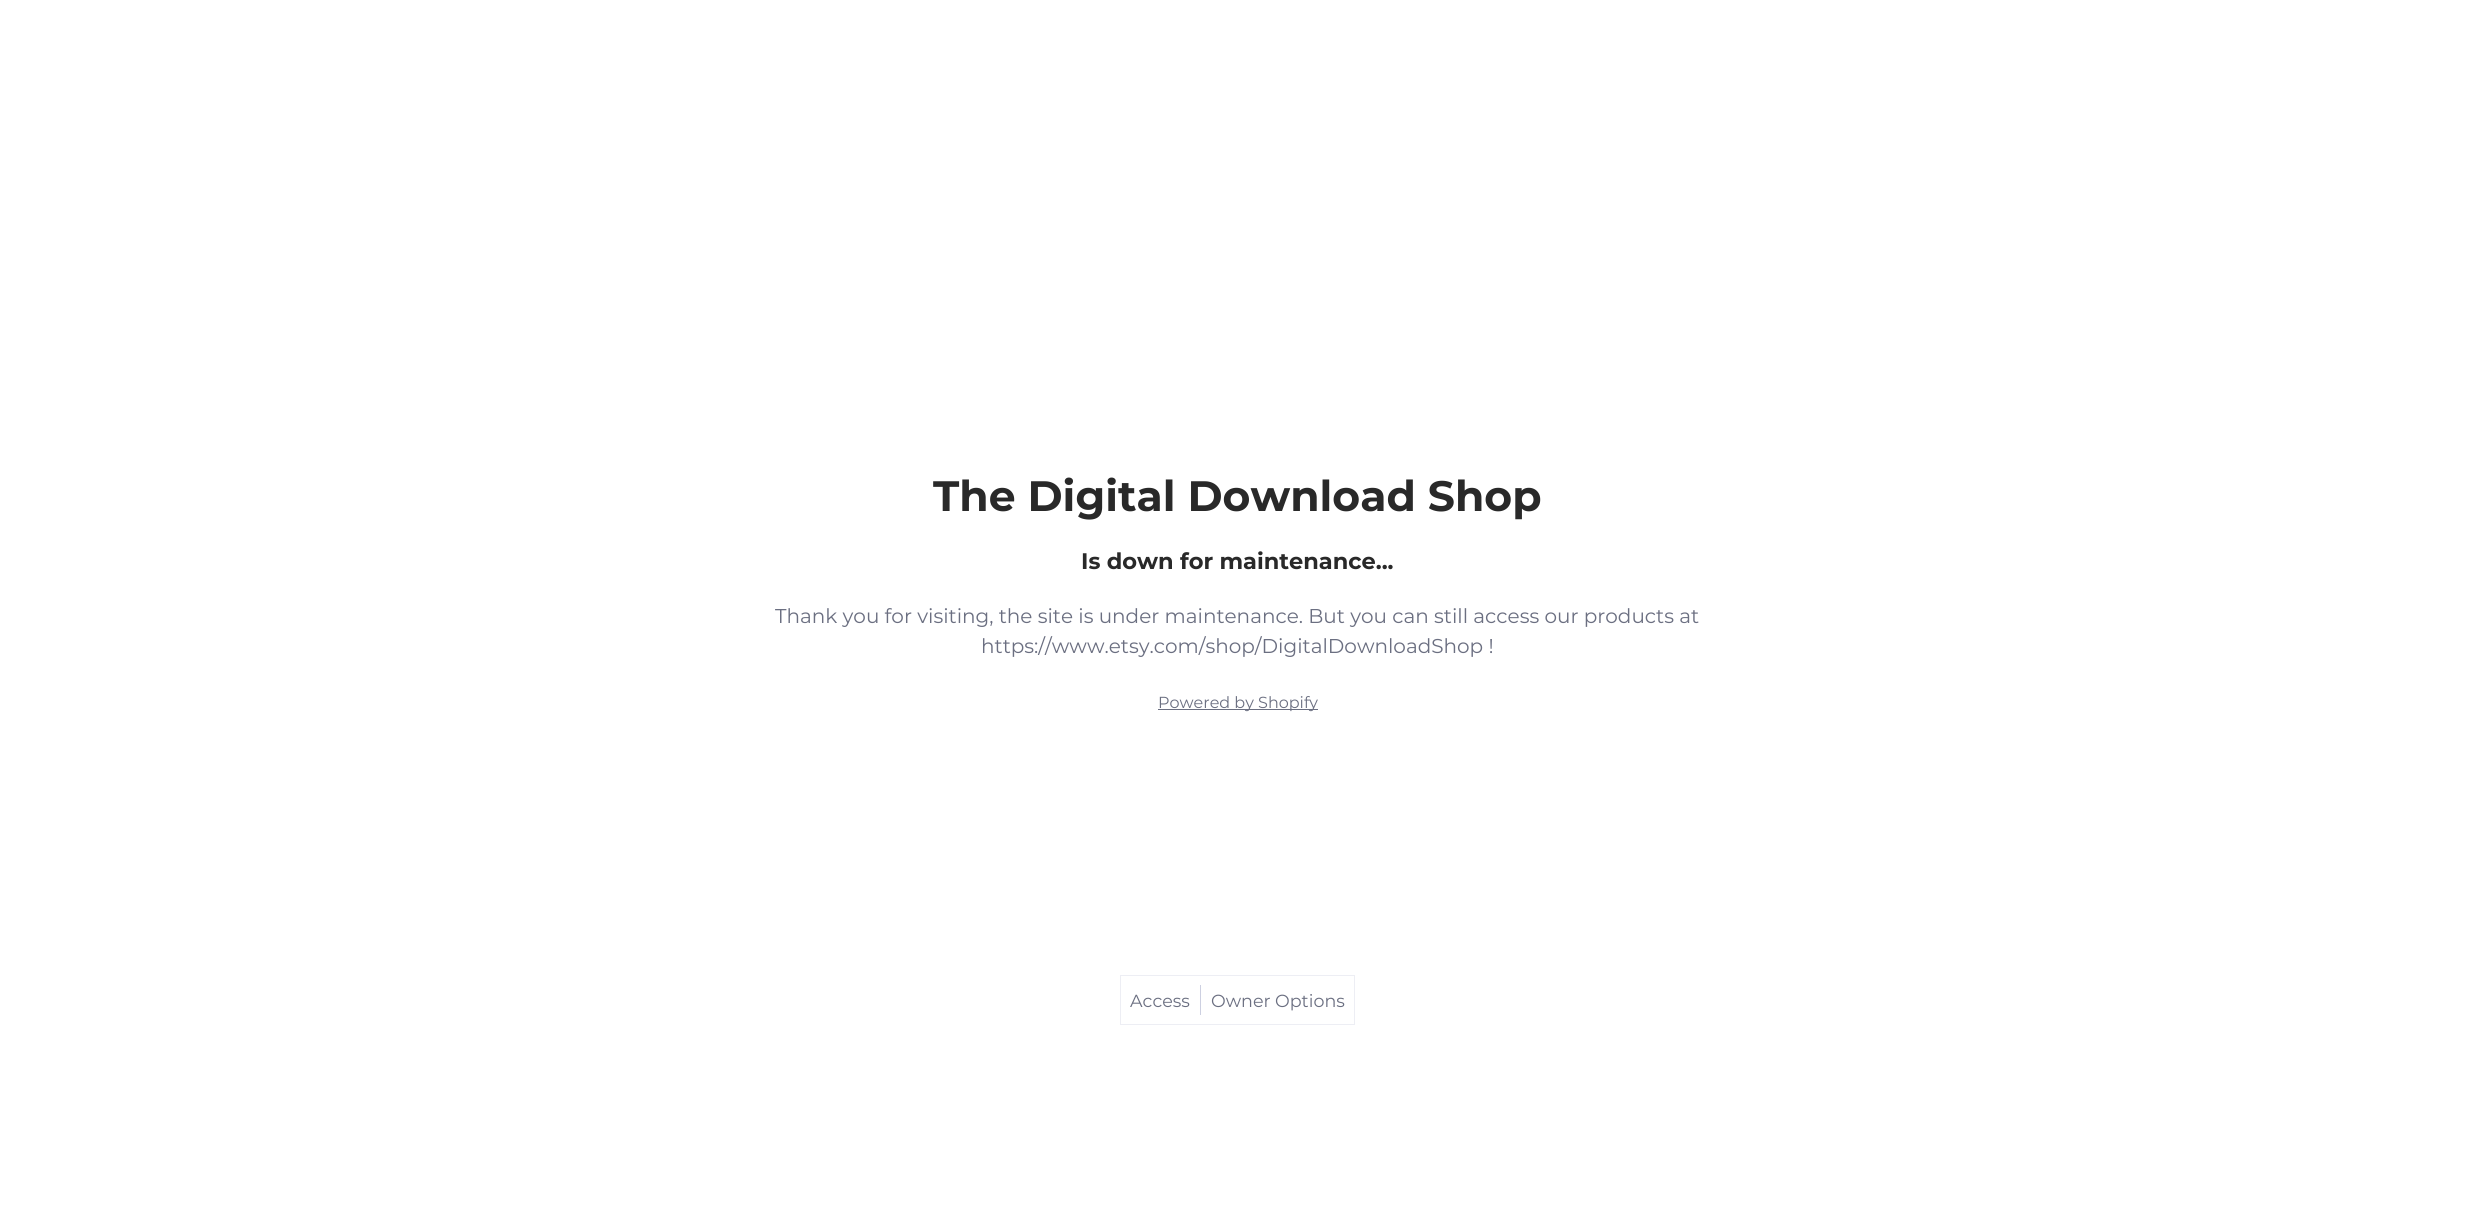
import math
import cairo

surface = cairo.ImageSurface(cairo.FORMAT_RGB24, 2475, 1212)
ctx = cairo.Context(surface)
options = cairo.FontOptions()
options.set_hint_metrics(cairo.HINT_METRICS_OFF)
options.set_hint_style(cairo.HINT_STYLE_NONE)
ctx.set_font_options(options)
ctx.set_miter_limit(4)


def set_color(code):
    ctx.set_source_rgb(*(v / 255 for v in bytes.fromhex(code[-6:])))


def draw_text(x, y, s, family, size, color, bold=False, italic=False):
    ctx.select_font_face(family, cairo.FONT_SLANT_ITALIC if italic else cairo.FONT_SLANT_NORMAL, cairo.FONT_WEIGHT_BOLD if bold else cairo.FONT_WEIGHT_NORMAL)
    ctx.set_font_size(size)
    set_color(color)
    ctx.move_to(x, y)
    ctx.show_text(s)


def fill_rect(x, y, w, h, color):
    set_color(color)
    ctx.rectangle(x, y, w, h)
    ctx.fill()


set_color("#ffffff")
ctx.paint()
draw_text(933, 511, "The Digital Download Shop", "Montserrat", 42.5, "#292929", bold=True)
draw_text(1081, 569, "Is down for maintenance...", "Montserrat", 22.5, "#292929", bold=True)
draw_text(775, 623, "Thank you for visiting, the site is under maintenance. But you can still access our products at", "Montserrat", 20, "#6b6f81")
draw_text(981, 653, "https://www.etsy.com/shop/DigitalDownloadShop !", "Montserrat", 20, "#6b6f81")
fill_rect(1158, 709, 160, 1, "#6b6f81")
draw_text(1158, 708, "Powered by Shopify", "Montserrat", 16, "#6b6f81")
ctx.rectangle(1120.5, 975.5, 234, 49)
set_color("#edeef4")
ctx.set_line_width(1)
ctx.stroke()
draw_text(1130, 1007, "Access", "Montserrat", 17.5, "#6b6f81")
fill_rect(1200, 985, 1, 30, "#cdd0e1")
draw_text(1211, 1007, "Owner Options", "Montserrat", 17.5, "#6b6f81")
surface.write_to_png("output.png")
